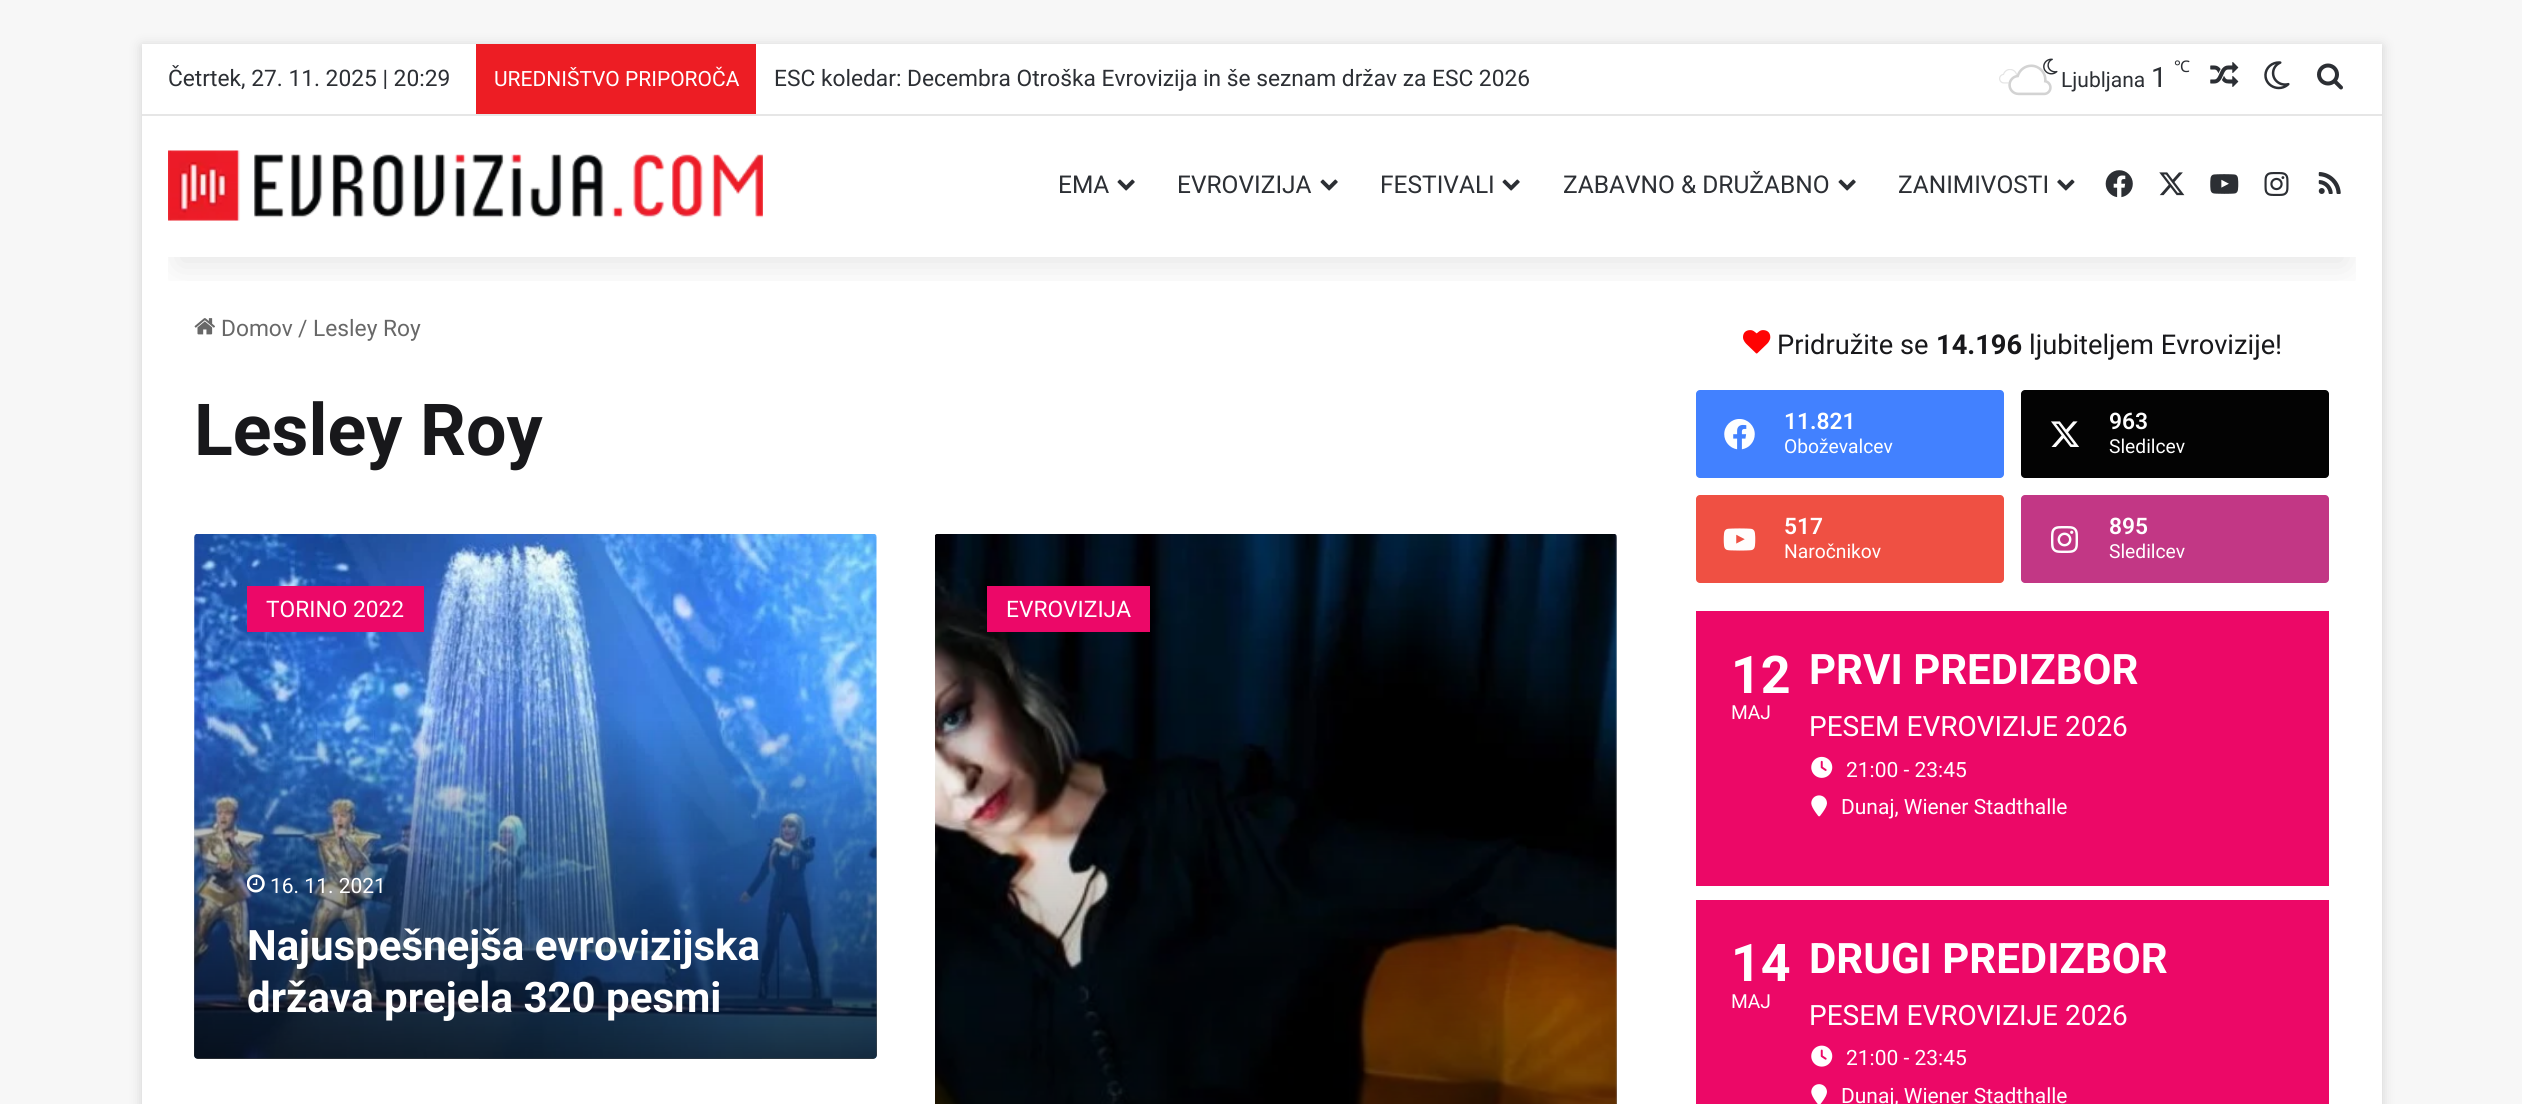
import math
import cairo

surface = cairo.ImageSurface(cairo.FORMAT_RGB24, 2522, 1104)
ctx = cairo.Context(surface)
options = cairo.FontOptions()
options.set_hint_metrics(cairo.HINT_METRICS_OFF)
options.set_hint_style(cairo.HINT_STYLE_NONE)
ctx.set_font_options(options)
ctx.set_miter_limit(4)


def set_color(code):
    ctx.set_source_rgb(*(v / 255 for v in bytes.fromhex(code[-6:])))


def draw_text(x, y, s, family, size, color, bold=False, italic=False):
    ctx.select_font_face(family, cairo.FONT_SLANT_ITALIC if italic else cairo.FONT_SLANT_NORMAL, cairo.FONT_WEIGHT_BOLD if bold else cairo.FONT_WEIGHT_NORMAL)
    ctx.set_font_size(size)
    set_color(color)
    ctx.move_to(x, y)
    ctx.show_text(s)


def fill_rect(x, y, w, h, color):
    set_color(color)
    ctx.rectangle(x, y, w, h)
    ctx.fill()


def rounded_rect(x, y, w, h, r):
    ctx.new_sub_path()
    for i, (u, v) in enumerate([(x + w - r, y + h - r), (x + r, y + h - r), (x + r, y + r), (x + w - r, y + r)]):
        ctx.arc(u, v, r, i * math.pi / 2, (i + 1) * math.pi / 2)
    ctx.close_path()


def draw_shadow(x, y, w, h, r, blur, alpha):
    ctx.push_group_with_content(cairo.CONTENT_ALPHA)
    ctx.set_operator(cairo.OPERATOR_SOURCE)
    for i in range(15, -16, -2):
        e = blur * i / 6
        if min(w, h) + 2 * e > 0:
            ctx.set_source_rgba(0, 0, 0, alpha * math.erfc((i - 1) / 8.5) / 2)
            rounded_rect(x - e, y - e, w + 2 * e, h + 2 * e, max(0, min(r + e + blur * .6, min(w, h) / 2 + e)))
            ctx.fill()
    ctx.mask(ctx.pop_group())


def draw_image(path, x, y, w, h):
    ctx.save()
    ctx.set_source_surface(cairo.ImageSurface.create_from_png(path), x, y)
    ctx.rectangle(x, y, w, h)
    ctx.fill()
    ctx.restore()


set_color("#f7f7f7")
ctx.paint()
set_color("#ababab")
draw_shadow(142, 46, 2240, 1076, 0, 6, 0.5)
fill_rect(142, 44, 2240, 1060, "#ffffff")
draw_image("assets/img16.png", 194, 318, 21, 17)
ctx.save()
ctx.rectangle(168, 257, 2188, 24)
ctx.clip()
set_color("#000000")
draw_shadow(177, 123, 2170, 143, 0, 17.5, 0.1)
ctx.restore()
fill_rect(142, 114, 2240, 2, "#e6e6e6")
draw_text(168, 86, "Četrtek, 27. 11. 2025 | 20:29", "Roboto", 22.75, "#2c2f34")
fill_rect(476, 44, 280, 70, "#ed1d24")
draw_text(494, 86, "UREDNIŠTVO PRIPOROČA", "Roboto", 21, "#ffffff")
draw_text(774, 86, "ESC koledar: Decembra Otroška Evrovizija in še seznam držav za ESC 2026", "Roboto", 22.75, "#2c2f34")
draw_image("assets/img1.png", 2043, 58, 15, 17)
draw_image("assets/img3.png", 1999, 69, 19, 15)
draw_image("assets/img4.png", 2008, 71, 37, 13)
draw_image("assets/img2.png", 2008, 64, 44, 32)
draw_text(2061, 87, "Ljubljana", "Roboto", 21, "#2c2f34")
draw_text(2151, 87, "1", "Roboto", 28, "#2c2f34")
draw_text(2174, 72, "℃", "Noto Sans", 16, "#2c2f34")
draw_image("assets/img5.png", 2210, 62, 29, 25)
draw_image("assets/img6.png", 2264, 61, 26, 29)
draw_image("assets/img7.png", 2317, 63, 26, 27)
draw_image("assets/img8.png", 168, 150, 595, 71)
draw_text(1058, 193, "EMA", "Roboto", 24.5, "#2c2f34")
draw_image("assets/img9.png", 1117, 179, 18, 12)
draw_text(1177, 193, "EVROVIZIJA", "Roboto", 24.5, "#2c2f34")
draw_image("assets/img9.png", 1320, 179, 18, 12)
draw_text(1380, 193, "FESTIVALI", "Roboto", 24.5, "#2c2f34")
draw_image("assets/img9.png", 1502, 179, 18, 12)
draw_text(1563, 193, "ZABAVNO & DRUŽABNO", "Roboto", 24.5, "#2c2f34")
draw_image("assets/img9.png", 1838, 179, 18, 12)
draw_text(1898, 193, "ZANIMIVOSTI", "Roboto", 24.5, "#2c2f34")
draw_image("assets/img10.png", 2057, 179, 18, 12)
draw_image("assets/img11.png", 2105, 170, 28, 28)
draw_image("assets/img12.png", 2159, 172, 26, 24)
draw_image("assets/img13.png", 2210, 174, 29, 20)
draw_image("assets/img14.png", 2264, 172, 25, 24)
draw_image("assets/img15.png", 2318, 172, 23, 22)
draw_text(221, 336, "Domov", "Roboto", 22.75, "#686868")
draw_text(298, 336, "/", "Roboto", 22.75, "#686868")
draw_text(313, 336, "Lesley Roy", "Roboto", 22.75, "#686868")
draw_text(194, 455, "Lesley Roy", "Roboto", 71.75, "#18181b", bold=True)
draw_image("assets/img17.png", 194, 534, 683, 525)
fill_rect(247, 586, 177, 46, "#ec0868")
draw_text(266, 617, "TORINO 2022", "Roboto", 22.75, "#ffffff")
gradient = cairo.LinearGradient(536, 718, 536, 1059)
gradient.add_color_stop_rgba(0, 0, 0, 0, 0)
gradient.add_color_stop_rgba(1, 0, 0, 0, 0.75)
ctx.set_source(gradient)
ctx.new_path()
ctx.move_to(194, 718)
ctx.line_to(877, 718)
ctx.line_to(877, 1055)
ctx.curve_to(877, 1057, 875, 1059, 873, 1059)
ctx.line_to(198, 1059)
ctx.curve_to(196, 1059, 194, 1057, 194, 1055)
ctx.close_path()
ctx.fill()
draw_image("assets/img18.png", 247, 874, 18, 19)
draw_text(270, 893, "16. 11. 2021", "Roboto", 21, "#ffffff")
draw_text(247, 960, "Najuspešnejša evrovizijska", "Roboto", 42, "#ffffff", bold=True)
draw_text(247, 1012, "država prejela 320 pesmi", "Roboto", 42, "#ffffff", bold=True)
draw_image("assets/img19.png", 935, 534, 682, 570)
fill_rect(987, 586, 163, 46, "#ec0868")
draw_text(1006, 617, "EVROVIZIJA", "Roboto", 22.75, "#ffffff")
gradient = cairo.LinearGradient(1276, 810, 1276, 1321)
gradient.add_color_stop_rgba(0, 0, 0, 0, 0)
gradient.add_color_stop_rgba(1, 0, 0, 0, 0.75)
ctx.set_source(gradient)
ctx.rectangle(935, 825, 682, 279)
ctx.fill()
draw_image("assets/img20.png", 1743, 330, 28, 24)
draw_text(1777, 354, "Pridružite se", "Roboto", 27.25, "#18181b")
draw_text(1936, 354, "14.196", "Roboto", 27.25, "#18181b", bold=True)
draw_text(2029, 354, "ljubiteljem Evrovizije!", "Roboto", 27.25, "#18181b")
set_color("#4281ff")
rounded_rect(1696, 390, 308, 88, 4)
ctx.fill()
draw_image("assets/img21.png", 1724, 419, 31, 31)
draw_text(1784, 429, "11.821", "Roboto SemiBold", 22.75, "#ffffff")
draw_text(1784, 453, "Oboževalcev", "Roboto", 19.25, "#ffffff")
set_color("#030303")
rounded_rect(2021, 390, 308, 88, 4)
ctx.fill()
draw_image("assets/img22.png", 2051, 421, 29, 26)
draw_text(2109, 429, "963", "Roboto SemiBold", 22.75, "#ffffff")
draw_text(2109, 453, "Sledilcev", "Roboto", 19.25, "#ffffff")
set_color("#ef5043")
rounded_rect(1696, 495, 308, 88, 4)
ctx.fill()
draw_image("assets/img23.png", 1723, 528, 33, 23)
draw_text(1784, 534, "517", "Roboto SemiBold", 22.75, "#ffffff")
draw_text(1784, 558, "Naročnikov", "Roboto", 19.25, "#ffffff")
set_color("#c23785")
rounded_rect(2021, 495, 308, 88, 4)
ctx.fill()
draw_image("assets/img24.png", 2051, 526, 27, 27)
draw_text(2109, 534, "895", "Roboto SemiBold", 22.75, "#ffffff")
draw_text(2109, 558, "Sledilcev", "Roboto", 19.25, "#ffffff")
fill_rect(1696, 611, 633, 275, "#ec0867")
draw_text(1731, 693, "12", "Roboto", 52, "#ffffff", bold=True)
draw_text(1731, 719, "MAJ", "Roboto", 19.25, "#ffffff")
draw_text(1809, 684, "PRVI PREDIZBOR", "Roboto", 42, "#ffffff", bold=True)
draw_text(1809, 736, "PESEM EVROVIZIJE 2026", "Roboto", 28, "#ffffff")
draw_image("assets/img25.png", 1811, 756, 22, 22)
draw_text(1846, 777, "21:00 - 23:45", "Roboto", 21, "#ffffff")
draw_image("assets/img26.png", 1811, 795, 16, 22)
draw_text(1841, 814, "Dunaj, Wiener Stadthalle", "Roboto", 21, "#ffffff")
fill_rect(1696, 900, 633, 204, "#ec0867")
draw_text(1731, 981, "14", "Roboto", 52, "#ffffff", bold=True)
draw_text(1731, 1008, "MAJ", "Roboto", 19.25, "#ffffff")
draw_text(1809, 973, "DRUGI PREDIZBOR", "Roboto", 42, "#ffffff", bold=True)
draw_text(1809, 1025, "PESEM EVROVIZIJE 2026", "Roboto", 28, "#ffffff")
draw_image("assets/img27.png", 1811, 1045, 22, 22)
draw_text(1846, 1065, "21:00 - 23:45", "Roboto", 21, "#ffffff")
draw_image("assets/img28.png", 1811, 1084, 16, 20)
draw_text(1841, 1103, "Dunaj, Wiener Stadthalle", "Roboto", 21, "#ffffff")
surface.write_to_png("output.png")
